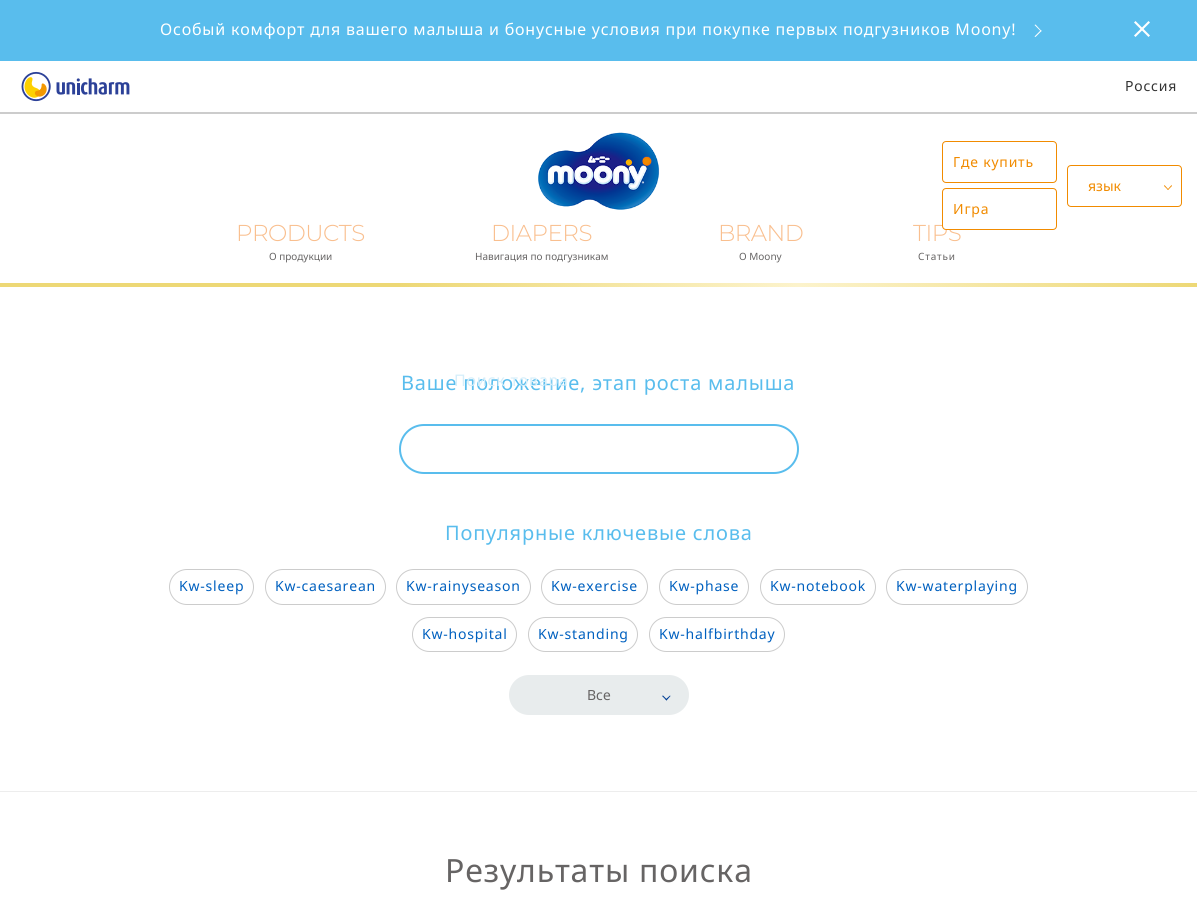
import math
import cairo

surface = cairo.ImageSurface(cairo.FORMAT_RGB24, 1197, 906)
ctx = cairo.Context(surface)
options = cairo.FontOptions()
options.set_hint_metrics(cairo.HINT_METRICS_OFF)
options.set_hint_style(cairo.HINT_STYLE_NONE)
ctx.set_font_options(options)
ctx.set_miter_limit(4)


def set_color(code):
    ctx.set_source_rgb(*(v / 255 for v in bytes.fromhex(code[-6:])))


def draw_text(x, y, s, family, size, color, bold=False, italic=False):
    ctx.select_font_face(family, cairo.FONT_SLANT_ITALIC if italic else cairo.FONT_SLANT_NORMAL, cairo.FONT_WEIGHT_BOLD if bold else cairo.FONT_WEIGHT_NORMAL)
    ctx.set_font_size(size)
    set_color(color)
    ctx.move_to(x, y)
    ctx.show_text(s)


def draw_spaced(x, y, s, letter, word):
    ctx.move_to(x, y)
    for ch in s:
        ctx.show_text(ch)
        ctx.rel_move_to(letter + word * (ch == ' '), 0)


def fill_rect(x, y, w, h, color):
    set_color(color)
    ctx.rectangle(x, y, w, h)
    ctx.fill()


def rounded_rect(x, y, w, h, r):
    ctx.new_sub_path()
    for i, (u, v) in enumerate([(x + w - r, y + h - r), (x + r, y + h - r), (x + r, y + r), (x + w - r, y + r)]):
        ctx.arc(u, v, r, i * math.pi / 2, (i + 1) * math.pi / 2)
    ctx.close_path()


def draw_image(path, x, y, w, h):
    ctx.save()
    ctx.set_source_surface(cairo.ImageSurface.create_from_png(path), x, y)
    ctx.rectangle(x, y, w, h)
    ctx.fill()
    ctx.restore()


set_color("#ffffff")
ctx.paint()
draw_image("assets/img1.png", 0, 283, 1197, 4)
fill_rect(0, 0, 1197, 61, "#59bded")
ctx.select_font_face("Noto Sans")
ctx.set_font_size(16)
set_color("#ffffff")
draw_spaced(160, 35, "Особый комфорт для вашего малыша и бонусные условия при покупке первых подгузников Moony!", 0.8, 0)
ctx.new_path()
ctx.move_to(1035.5, 24.5)
ctx.line_to(1041.5, 31)
ctx.line_to(1041, 31.5)
ctx.line_to(1034.5, 25)
ctx.close_path()
ctx.fill()
ctx.new_path()
ctx.move_to(1041, 30)
ctx.line_to(1041.5, 31)
ctx.line_to(1035.5, 37)
ctx.line_to(1034.5, 36.5)
ctx.close_path()
ctx.fill()
ctx.new_path()
ctx.move_to(1134, 22.5)
ctx.line_to(1135.5, 21)
ctx.line_to(1150, 35.5)
ctx.line_to(1148.5, 37)
ctx.close_path()
ctx.fill()
ctx.new_path()
ctx.move_to(1148.5, 21)
ctx.line_to(1150, 22.5)
ctx.line_to(1135.5, 37)
ctx.line_to(1134, 35.5)
ctx.close_path()
ctx.fill()
fill_rect(0, 112, 1197, 2, "#cccccc")
draw_image("assets/img2.png", 21, 71, 109, 31)
ctx.set_font_size(14)
set_color("#333333")
draw_spaced(1125, 91, "Россия", 0.8, 0)
draw_image("assets/img3.png", 538, 132, 122, 78)
rounded_rect(942.5, 141.5, 114, 41, 3.5)
set_color("#f18b00")
ctx.set_line_width(1)
ctx.stroke()
draw_spaced(953, 167, "Где купить", 0.8, 0)
ctx.select_font_face("Montserrat Thin")
ctx.set_font_size(23)
set_color("#f9bf8f")
draw_spaced(913, 241, "TIPS", -0.5, 0)
set_color("#ffffff")
rounded_rect(942.5, 188.5, 114, 41, 3.5)
ctx.fill_preserve()
set_color("#f18b00")
ctx.stroke()
ctx.select_font_face("Noto Sans")
ctx.set_font_size(14)
draw_spaced(953, 214, "Игра", 0.8, 0)
rounded_rect(1067.5, 165.5, 114, 41, 3.5)
ctx.stroke()
draw_text(1088, 191, "язык", "Noto Sans", 14, "#f18b00")
ctx.new_path()
ctx.move_to(1172, 186)
ctx.line_to(1168, 190)
ctx.line_to(1167.5, 189.5)
ctx.line_to(1171.5, 185)
ctx.close_path()
ctx.fill()
ctx.new_path()
ctx.move_to(1168.5, 189.5)
ctx.line_to(1168, 190)
ctx.line_to(1164, 186)
ctx.line_to(1164.5, 185)
ctx.close_path()
ctx.fill()
ctx.select_font_face("Montserrat Thin")
ctx.set_font_size(23)
set_color("#f9bf8f")
draw_spaced(236, 241, "PRODUCTS", -0.5, 0)
draw_text(269, 260, "О продукции", "Noto Sans", 10, "#666464")
ctx.set_font_size(20)
set_color("#59bded")
draw_spaced(401, 390, "Ваше положение, этап роста малыша", 0.8, 0)
ctx.set_font_size(16)
set_color("#d5eefa")
draw_spaced(454, 386, "Поиск товара", 0.8, 0)
ctx.select_font_face("Montserrat Thin")
ctx.set_font_size(23)
set_color("#f9bf8f")
draw_spaced(491, 241, "DIAPERS", -0.5, 0)
draw_text(475, 260, "Навигация по подгузникам", "Noto Sans", 10, "#666464")
ctx.select_font_face("Montserrat Thin")
ctx.set_font_size(23)
set_color("#f9bf8f")
draw_spaced(718, 241, "BRAND", -0.5, 0)
draw_text(739, 260, "О Moony", "Noto Sans", 10, "#666464")
draw_spaced(918, 260, "Статьи", 0.8, 0)
rounded_rect(400, 425, 398, 48, 24)
set_color("#59bded")
ctx.set_line_width(2)
ctx.stroke()
ctx.set_font_size(20)
draw_spaced(445, 540, "Популярные ключевые слова", 0.8, 0)
rounded_rect(169.5, 569.5, 84, 35, 17.5)
set_color("#cccccc")
ctx.set_line_width(1)
ctx.stroke()
ctx.set_font_size(14)
set_color("#0060bf")
draw_spaced(179, 591, "Kw-sleep", 0.8, 0)
rounded_rect(265.5, 569.5, 120, 35, 17.5)
set_color("#cccccc")
ctx.stroke()
set_color("#0060bf")
draw_spaced(275, 591, "Kw-caesarean", 0.8, 0)
rounded_rect(396.5, 569.5, 134, 35, 17.5)
set_color("#cccccc")
ctx.stroke()
set_color("#0060bf")
draw_spaced(406, 591, "Kw-rainyseason", 0.8, 0)
rounded_rect(541.5, 569.5, 106, 35, 17.5)
set_color("#cccccc")
ctx.stroke()
set_color("#0060bf")
draw_spaced(551, 591, "Kw-exercise", 0.8, 0)
rounded_rect(659.5, 569.5, 89, 35, 17.5)
set_color("#cccccc")
ctx.stroke()
set_color("#0060bf")
draw_spaced(669, 591, "Kw-phase", 0.8, 0)
rounded_rect(760.5, 569.5, 115, 35, 17.5)
set_color("#cccccc")
ctx.stroke()
set_color("#0060bf")
draw_spaced(770, 591, "Kw-notebook", 0.8, 0)
rounded_rect(886.5, 569.5, 141, 35, 17.5)
set_color("#cccccc")
ctx.stroke()
set_color("#0060bf")
draw_spaced(896, 591, "Kw-waterplaying", 0.8, 0)
rounded_rect(412.5, 617.5, 104, 34, 17)
set_color("#cccccc")
ctx.stroke()
set_color("#0060bf")
draw_spaced(422, 639, "Kw-hospital", 0.8, 0)
rounded_rect(528.5, 617.5, 109, 34, 17)
set_color("#cccccc")
ctx.stroke()
set_color("#0060bf")
draw_spaced(538, 639, "Kw-standing", 0.8, 0)
rounded_rect(649.5, 617.5, 135, 34, 17)
set_color("#cccccc")
ctx.stroke()
set_color("#0060bf")
draw_spaced(659, 639, "Kw-halfbirthday", 0.8, 0)
set_color("#e8eced")
rounded_rect(509, 675, 180, 40, 20)
ctx.fill()
draw_text(587, 700, "Все", "Noto Sans", 14, "#666464")
set_color("#003e95")
ctx.new_path()
ctx.move_to(670.5, 696)
ctx.line_to(666.5, 700.5)
ctx.line_to(665.5, 699.5)
ctx.line_to(670, 695.5)
ctx.close_path()
ctx.fill()
ctx.new_path()
ctx.move_to(667, 699.5)
ctx.line_to(666.5, 700.5)
ctx.line_to(662, 696)
ctx.line_to(663, 695.5)
ctx.close_path()
ctx.fill()
fill_rect(0, 791, 1197, 1, "#ededed")
ctx.set_font_size(32)
set_color("#666464")
draw_spaced(445, 882, "Результаты поиска", 0.8, 0)
surface.write_to_png("output.png")
